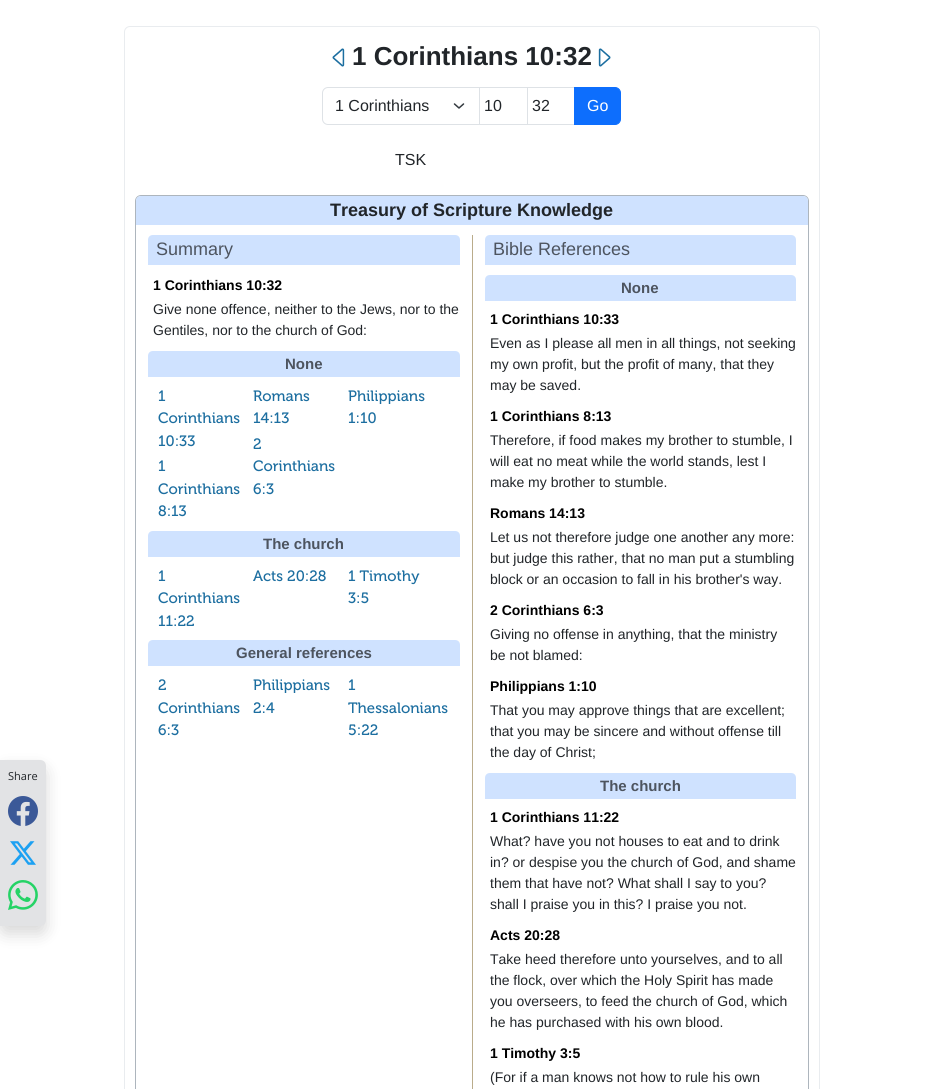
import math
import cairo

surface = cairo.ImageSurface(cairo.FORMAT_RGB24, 943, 1089)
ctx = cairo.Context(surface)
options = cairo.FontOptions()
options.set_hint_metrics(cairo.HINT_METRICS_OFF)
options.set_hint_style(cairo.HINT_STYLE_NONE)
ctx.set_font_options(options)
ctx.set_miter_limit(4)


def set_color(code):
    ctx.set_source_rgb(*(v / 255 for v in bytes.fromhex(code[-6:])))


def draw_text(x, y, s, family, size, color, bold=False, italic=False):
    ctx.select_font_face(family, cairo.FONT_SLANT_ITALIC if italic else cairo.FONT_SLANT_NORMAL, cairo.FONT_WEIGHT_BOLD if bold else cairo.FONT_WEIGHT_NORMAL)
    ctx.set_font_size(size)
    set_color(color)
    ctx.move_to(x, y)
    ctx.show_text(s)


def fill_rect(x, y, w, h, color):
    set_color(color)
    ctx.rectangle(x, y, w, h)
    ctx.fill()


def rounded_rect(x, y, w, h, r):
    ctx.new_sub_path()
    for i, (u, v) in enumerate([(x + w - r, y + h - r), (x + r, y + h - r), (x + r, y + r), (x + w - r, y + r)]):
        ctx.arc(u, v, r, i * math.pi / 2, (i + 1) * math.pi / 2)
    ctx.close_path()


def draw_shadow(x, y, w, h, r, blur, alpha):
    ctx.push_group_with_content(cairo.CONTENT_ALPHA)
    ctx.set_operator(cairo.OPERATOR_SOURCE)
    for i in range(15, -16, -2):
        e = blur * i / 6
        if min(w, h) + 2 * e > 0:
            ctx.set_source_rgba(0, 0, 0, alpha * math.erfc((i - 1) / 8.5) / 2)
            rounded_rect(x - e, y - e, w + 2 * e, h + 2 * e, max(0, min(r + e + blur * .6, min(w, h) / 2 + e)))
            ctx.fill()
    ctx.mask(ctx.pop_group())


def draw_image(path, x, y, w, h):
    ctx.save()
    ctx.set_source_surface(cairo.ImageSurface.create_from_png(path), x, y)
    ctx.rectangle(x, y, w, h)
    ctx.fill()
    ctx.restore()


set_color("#ffffff")
ctx.paint()
set_color("#000000")
draw_shadow(0, 768, 46, 166, 6, 8, 0.15)
set_color("#e2e3e5")
ctx.new_path()
ctx.move_to(0, 760)
ctx.line_to(40, 760)
ctx.curve_to(43.5, 760, 46, 762.5, 46, 766)
ctx.line_to(46, 920)
ctx.curve_to(46, 923.5, 43.5, 926, 40, 926)
ctx.line_to(0, 926)
ctx.close_path()
ctx.fill()
draw_text(8, 780, "Share", "Open Sans", 11, "#212529")
draw_image("assets/img1.png", 8, 796, 30, 30)
draw_image("assets/img2.png", 10, 841, 26, 24)
draw_image("assets/img3.png", 8, 880, 30, 30)
rounded_rect(124.5, 26.5, 695, 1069, 5.5)
set_color("#e9ecef")
ctx.set_line_width(1)
ctx.stroke()
draw_image("assets/img4.png", 332, 48, 13, 19)
draw_text(352, 65, "1 Corinthians 10:32", "Liberation Sans", 26, "#212529", bold=True)
draw_image("assets/img5.png", 598, 48, 13, 19)
ctx.new_path()
ctx.move_to(454.5, 104)
ctx.line_to(459, 108)
ctx.line_to(463.5, 104)
set_color("#343a40")
ctx.set_line_width(1.5)
ctx.set_line_cap(cairo.LINE_CAP_ROUND)
ctx.set_line_join(cairo.LINE_JOIN_ROUND)
ctx.stroke()
ctx.new_path()
ctx.move_to(328, 87.5)
ctx.line_to(479.5, 87.5)
ctx.line_to(479.5, 124.5)
ctx.line_to(328, 124.5)
ctx.curve_to(325, 124.5, 322.5, 122, 322.5, 119)
ctx.line_to(322.5, 93)
ctx.curve_to(322.5, 90, 325, 87.5, 328, 87.5)
ctx.close_path()
set_color("#dee2e6")
ctx.set_line_width(1)
ctx.set_line_cap(cairo.LINE_CAP_BUTT)
ctx.set_line_join(cairo.LINE_JOIN_MITER)
ctx.stroke()
draw_text(335, 111, "1 Corinthians", "Liberation Sans", 16, "#212529")
ctx.rectangle(479.5, 87.5, 48, 37)
set_color("#dee2e6")
ctx.stroke()
draw_text(484, 111, "10", "Liberation Sans", 16, "#212529")
ctx.rectangle(527.5, 87.5, 47, 37)
set_color("#dee2e6")
ctx.stroke()
draw_text(532, 111, "32", "Liberation Sans", 16, "#212529")
set_color("#0d6efd")
ctx.new_path()
ctx.move_to(574.5, 87.5)
ctx.line_to(615, 87.5)
ctx.curve_to(618, 87.5, 620.5, 90, 620.5, 93)
ctx.line_to(620.5, 119)
ctx.curve_to(620.5, 122, 618, 124.5, 615, 124.5)
ctx.line_to(574.5, 124.5)
ctx.close_path()
ctx.fill_preserve()
ctx.stroke()
draw_text(587, 111, "Go", "Liberation Sans", 16, "#ffffff")
draw_text(395, 165, "TSK", "Liberation Sans", 16, "#212529")
ctx.new_path()
ctx.move_to(141, 195.5)
ctx.line_to(803, 195.5)
ctx.curve_to(806, 195.5, 808.5, 198, 808.5, 201)
ctx.line_to(808.5, 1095.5)
ctx.line_to(135.5, 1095.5)
ctx.line_to(135.5, 201)
ctx.curve_to(135.5, 198, 138, 195.5, 141, 195.5)
ctx.close_path()
set_color("#adb5bd")
ctx.stroke()
set_color("#cfe2ff")
ctx.new_path()
ctx.move_to(141, 196)
ctx.line_to(803, 196)
ctx.curve_to(806, 196, 808, 198, 808, 201)
ctx.line_to(808, 225)
ctx.line_to(136, 225)
ctx.line_to(136, 201)
ctx.curve_to(136, 198, 138, 196, 141, 196)
ctx.close_path()
ctx.fill()
draw_text(330, 216, "Treasury of Scripture Knowledge", "Liberation Sans", 18, "#212529", bold=True)
set_color("#cfe2ff")
ctx.new_path()
ctx.move_to(153, 235)
ctx.line_to(455, 235)
ctx.curve_to(458, 235, 460, 237, 460, 240)
ctx.line_to(460, 265)
ctx.line_to(148, 265)
ctx.line_to(148, 240)
ctx.curve_to(148, 237, 150, 235, 153, 235)
ctx.close_path()
ctx.fill()
draw_text(156, 255, "Summary", "Liberation Sans", 18, "#4d545f")
draw_text(153, 290, "1 Corinthians 10:32", "Liberation Sans", 14, "#000000", bold=True)
draw_text(153, 314, "Give none offence, neither to the Jews, nor to the", "Liberation Sans", 14, "#212529")
draw_text(153, 335, "Gentiles, nor to the church of God:", "Liberation Sans", 14, "#212529")
set_color("#cfe2ff")
ctx.new_path()
ctx.move_to(153, 351)
ctx.line_to(455, 351)
ctx.curve_to(458, 351, 460, 353, 460, 356)
ctx.line_to(460, 377)
ctx.line_to(148, 377)
ctx.line_to(148, 356)
ctx.curve_to(148, 353, 150, 351, 153, 351)
ctx.close_path()
ctx.fill()
draw_text(285, 369, "None", "Liberation Sans", 15, "#4d545f", bold=True)
draw_text(158, 401, "1", "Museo", 15, "#1c6ea0")
draw_text(158, 423, "Corinthians", "Museo", 15, "#1c6ea0")
draw_text(158, 446, "10:33", "Museo", 15, "#1c6ea0")
draw_text(158, 471, "1", "Museo", 15, "#1c6ea0")
draw_text(158, 494, "Corinthians", "Museo", 15, "#1c6ea0")
draw_text(158, 516, "8:13", "Museo", 15, "#1c6ea0")
draw_text(253, 401, "Romans", "Museo", 15, "#1c6ea0")
draw_text(253, 423, "14:13", "Museo", 15, "#1c6ea0")
draw_text(253, 449, "2", "Museo", 15, "#1c6ea0")
draw_text(253, 471, "Corinthians", "Museo", 15, "#1c6ea0")
draw_text(253, 494, "6:3", "Museo", 15, "#1c6ea0")
draw_text(348, 401, "Philippians", "Museo", 15, "#1c6ea0")
draw_text(348, 423, "1:10", "Museo", 15, "#1c6ea0")
set_color("#cfe2ff")
ctx.new_path()
ctx.move_to(153, 531)
ctx.line_to(455, 531)
ctx.curve_to(458, 531, 460, 533, 460, 536)
ctx.line_to(460, 557)
ctx.line_to(148, 557)
ctx.line_to(148, 536)
ctx.curve_to(148, 533, 150, 531, 153, 531)
ctx.close_path()
ctx.fill()
draw_text(263, 549, "The church", "Liberation Sans", 15, "#4d545f", bold=True)
draw_text(158, 581, "1", "Museo", 15, "#1c6ea0")
draw_text(158, 603, "Corinthians", "Museo", 15, "#1c6ea0")
draw_text(158, 626, "11:22", "Museo", 15, "#1c6ea0")
draw_text(253, 581, "Acts 20:28", "Museo", 15, "#1c6ea0")
draw_text(348, 581, "1 Timothy", "Museo", 15, "#1c6ea0")
draw_text(348, 603, "3:5", "Museo", 15, "#1c6ea0")
set_color("#cfe2ff")
ctx.new_path()
ctx.move_to(153, 640)
ctx.line_to(455, 640)
ctx.curve_to(458, 640, 460, 642, 460, 645)
ctx.line_to(460, 666)
ctx.line_to(148, 666)
ctx.line_to(148, 645)
ctx.curve_to(148, 642, 150, 640, 153, 640)
ctx.close_path()
ctx.fill()
draw_text(236, 658, "General references", "Liberation Sans", 15, "#4d545f", bold=True)
draw_text(158, 690, "2", "Museo", 15, "#1c6ea0")
draw_text(158, 713, "Corinthians", "Museo", 15, "#1c6ea0")
draw_text(158, 735, "6:3", "Museo", 15, "#1c6ea0")
draw_text(253, 690, "Philippians", "Museo", 15, "#1c6ea0")
draw_text(253, 713, "2:4", "Museo", 15, "#1c6ea0")
draw_text(348, 690, "1", "Museo", 15, "#1c6ea0")
draw_text(348, 713, "Thessalonians", "Museo", 15, "#1c6ea0")
draw_text(348, 735, "5:22", "Museo", 15, "#1c6ea0")
fill_rect(472, 235, 1, 854, "#baac8b")
set_color("#cfe2ff")
ctx.new_path()
ctx.move_to(490, 235)
ctx.line_to(791, 235)
ctx.curve_to(794, 235, 796, 237, 796, 240)
ctx.line_to(796, 265)
ctx.line_to(485, 265)
ctx.line_to(485, 240)
ctx.curve_to(485, 237, 487, 235, 490, 235)
ctx.close_path()
ctx.fill()
draw_text(493, 255, "Bible References", "Liberation Sans", 18, "#4d545f")
set_color("#cfe2ff")
ctx.new_path()
ctx.move_to(490, 275)
ctx.line_to(791, 275)
ctx.curve_to(794, 275, 796, 277, 796, 280)
ctx.line_to(796, 301)
ctx.line_to(485, 301)
ctx.line_to(485, 280)
ctx.curve_to(485, 277, 487, 275, 490, 275)
ctx.close_path()
ctx.fill()
draw_text(621, 293, "None", "Liberation Sans", 15, "#4d545f", bold=True)
draw_text(490, 324, "1 Corinthians 10:33", "Liberation Sans", 14, "#000000", bold=True)
draw_text(490, 348, "Even as I please all men in all things, not seeking", "Liberation Sans", 14, "#212529")
draw_text(490, 369, "my own profit, but the profit of many, that they", "Liberation Sans", 14, "#212529")
draw_text(490, 390, "may be saved.", "Liberation Sans", 14, "#212529")
draw_text(490, 421, "1 Corinthians 8:13", "Liberation Sans", 14, "#000000", bold=True)
draw_text(490, 445, "Therefore, if food makes my brother to stumble, I", "Liberation Sans", 14, "#212529")
draw_text(490, 466, "will eat no meat while the world stands, lest I", "Liberation Sans", 14, "#212529")
draw_text(490, 487, "make my brother to stumble.", "Liberation Sans", 14, "#212529")
draw_text(490, 518, "Romans 14:13", "Liberation Sans", 14, "#000000", bold=True)
draw_text(490, 542, "Let us not therefore judge one another any more:", "Liberation Sans", 14, "#212529")
draw_text(490, 563, "but judge this rather, that no man put a stumbling", "Liberation Sans", 14, "#212529")
draw_text(490, 584, "block or an occasion to fall in his brother's way.", "Liberation Sans", 14, "#212529")
draw_text(490, 615, "2 Corinthians 6:3", "Liberation Sans", 14, "#000000", bold=True)
draw_text(490, 639, "Giving no offense in anything, that the ministry", "Liberation Sans", 14, "#212529")
draw_text(490, 660, "be not blamed:", "Liberation Sans", 14, "#212529")
draw_text(490, 691, "Philippians 1:10", "Liberation Sans", 14, "#000000", bold=True)
draw_text(490, 715, "That you may approve things that are excellent;", "Liberation Sans", 14, "#212529")
draw_text(490, 736, "that you may be sincere and without offense till", "Liberation Sans", 14, "#212529")
draw_text(490, 757, "the day of Christ;", "Liberation Sans", 14, "#212529")
set_color("#cfe2ff")
ctx.new_path()
ctx.move_to(490, 773)
ctx.line_to(791, 773)
ctx.curve_to(794, 773, 796, 775, 796, 778)
ctx.line_to(796, 799)
ctx.line_to(485, 799)
ctx.line_to(485, 778)
ctx.curve_to(485, 775, 487, 773, 490, 773)
ctx.close_path()
ctx.fill()
draw_text(600, 791, "The church", "Liberation Sans", 15, "#4d545f", bold=True)
draw_text(490, 822, "1 Corinthians 11:22", "Liberation Sans", 14, "#000000", bold=True)
draw_text(490, 846, "What? have you not houses to eat and to drink", "Liberation Sans", 14, "#212529")
draw_text(490, 867, "in? or despise you the church of God, and shame", "Liberation Sans", 14, "#212529")
draw_text(490, 888, "them that have not? What shall I say to you?", "Liberation Sans", 14, "#212529")
draw_text(490, 909, "shall I praise you in this? I praise you not.", "Liberation Sans", 14, "#212529")
draw_text(490, 940, "Acts 20:28", "Liberation Sans", 14, "#000000", bold=True)
draw_text(490, 964, "Take heed therefore unto yourselves, and to all", "Liberation Sans", 14, "#212529")
draw_text(490, 985, "the flock, over which the Holy Spirit has made", "Liberation Sans", 14, "#212529")
draw_text(490, 1006, "you overseers, to feed the church of God, which", "Liberation Sans", 14, "#212529")
draw_text(490, 1027, "he has purchased with his own blood.", "Liberation Sans", 14, "#212529")
draw_text(490, 1058, "1 Timothy 3:5", "Liberation Sans", 14, "#000000", bold=True)
draw_text(490, 1082, "(For if a man knows not how to rule his own", "Liberation Sans", 14, "#212529")
surface.write_to_png("output.png")
